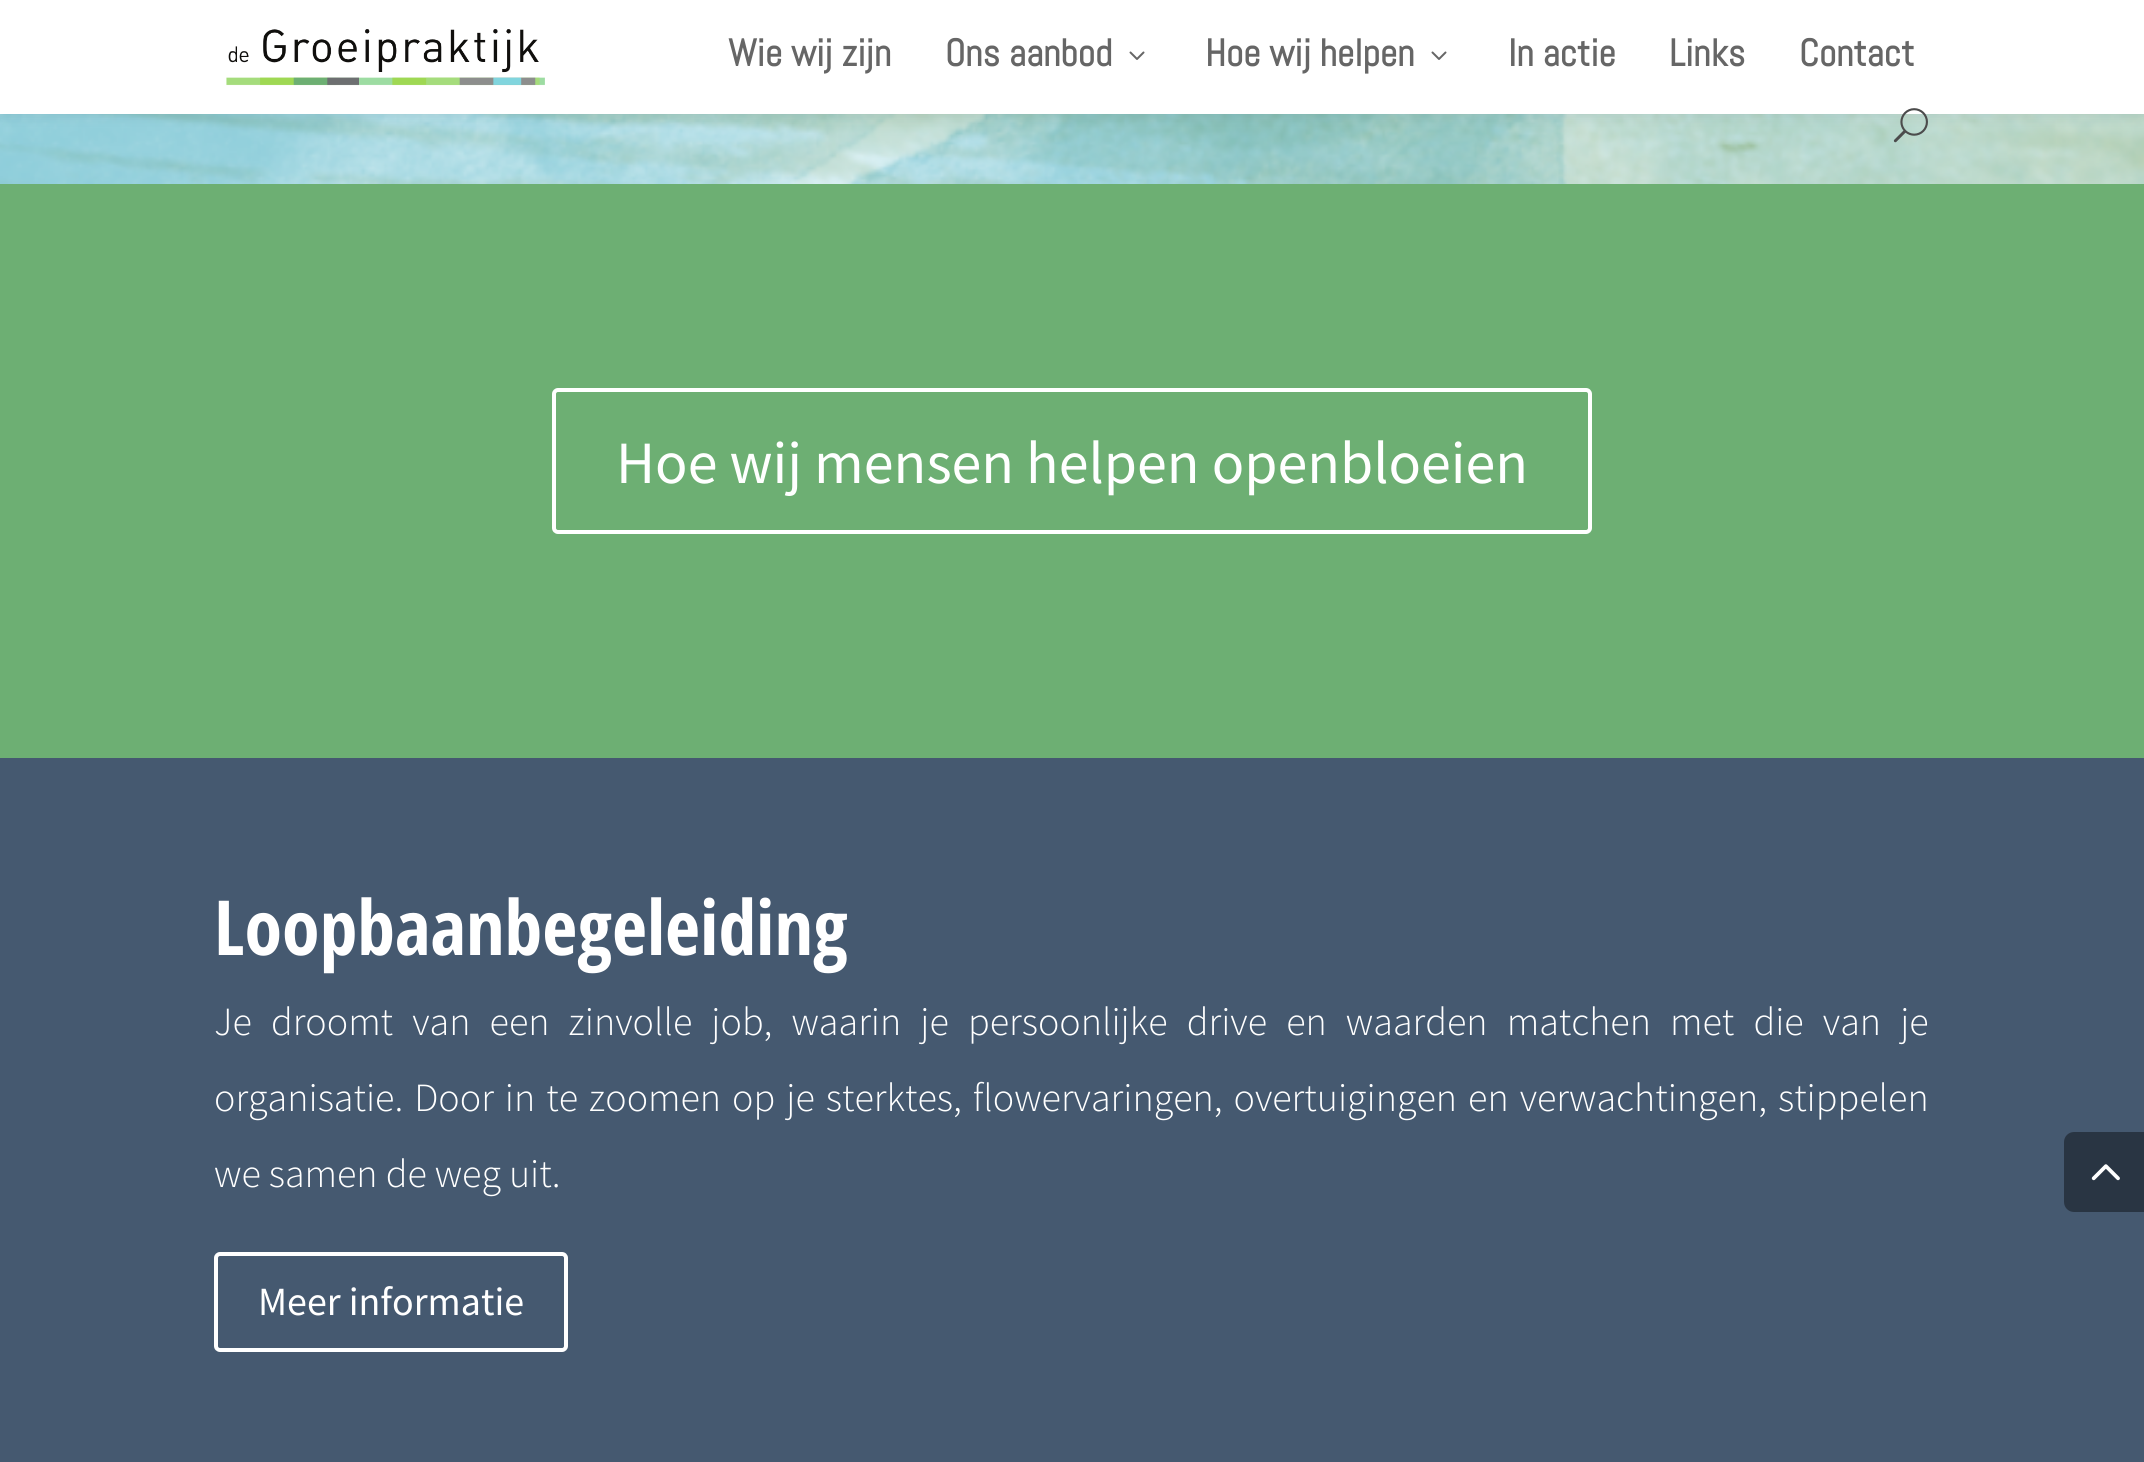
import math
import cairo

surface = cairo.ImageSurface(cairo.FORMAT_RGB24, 2144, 1462)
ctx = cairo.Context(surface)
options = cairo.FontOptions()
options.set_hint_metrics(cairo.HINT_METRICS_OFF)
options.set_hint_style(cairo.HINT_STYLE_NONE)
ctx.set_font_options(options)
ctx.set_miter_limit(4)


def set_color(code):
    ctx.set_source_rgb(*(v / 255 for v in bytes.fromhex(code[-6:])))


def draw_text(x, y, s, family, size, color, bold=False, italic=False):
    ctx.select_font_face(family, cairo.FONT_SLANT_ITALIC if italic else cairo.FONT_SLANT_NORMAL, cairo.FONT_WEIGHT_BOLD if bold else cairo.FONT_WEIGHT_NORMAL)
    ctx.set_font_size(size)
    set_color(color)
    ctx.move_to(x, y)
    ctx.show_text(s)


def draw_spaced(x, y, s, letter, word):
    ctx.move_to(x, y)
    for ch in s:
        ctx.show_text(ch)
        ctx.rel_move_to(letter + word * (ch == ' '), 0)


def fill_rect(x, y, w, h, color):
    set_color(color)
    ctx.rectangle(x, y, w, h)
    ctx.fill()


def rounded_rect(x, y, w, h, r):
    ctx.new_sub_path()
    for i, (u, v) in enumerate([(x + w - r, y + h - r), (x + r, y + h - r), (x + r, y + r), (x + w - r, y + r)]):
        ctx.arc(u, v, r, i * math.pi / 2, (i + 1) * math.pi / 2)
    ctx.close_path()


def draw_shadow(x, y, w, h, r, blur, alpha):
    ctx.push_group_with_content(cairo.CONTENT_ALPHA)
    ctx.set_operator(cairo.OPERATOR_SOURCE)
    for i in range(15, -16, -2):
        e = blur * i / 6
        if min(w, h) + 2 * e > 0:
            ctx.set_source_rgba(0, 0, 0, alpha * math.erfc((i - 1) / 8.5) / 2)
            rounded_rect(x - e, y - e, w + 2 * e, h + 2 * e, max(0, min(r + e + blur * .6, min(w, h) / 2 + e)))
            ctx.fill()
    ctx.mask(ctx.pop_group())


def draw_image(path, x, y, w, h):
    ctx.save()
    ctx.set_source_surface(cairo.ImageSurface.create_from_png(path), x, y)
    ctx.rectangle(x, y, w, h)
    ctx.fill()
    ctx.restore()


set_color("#ffffff")
ctx.paint()
draw_image("assets/img4.png", 0, 114, 2144, 70)
set_color("#000000")
draw_shadow(0, 0, 2144, 114, 0, 7, 0.1)
fill_rect(0, 0, 2144, 114, "#ffffff")
draw_image("assets/img1.png", 226, 29, 319, 57)
draw_text(728, 66, "Wie wij zijn", "Abel", 38, "#666666", bold=True)
draw_text(945, 66, "Ons aanbod", "Abel", 38, "#666666", bold=True)
draw_image("assets/img2.png", 1129, 51, 16, 9)
draw_text(1205, 66, "Hoe wij helpen", "Abel", 38, "#666666", bold=True)
draw_image("assets/img2.png", 1431, 51, 16, 9)
draw_text(1508, 66, "In actie", "Abel", 38, "#666666", bold=True)
draw_text(1669, 66, "Links", "Abel", 38, "#666666", bold=True)
draw_text(1799, 66, "Contact", "Abel", 38, "#666666", bold=True)
draw_image("assets/img3.png", 1893, 108, 35, 35)
fill_rect(0, 184, 2144, 574, "#6daf73")
rounded_rect(554, 390, 1036, 142, 4)
set_color("#ffffff")
ctx.set_line_width(4)
ctx.stroke()
draw_text(616, 483, "Hoe wij mensen helpen openbloeien", "Source Sans Pro", 60, "#ffffff")
fill_rect(0, 758, 2144, 704, "#455970")
draw_text(214, 955, "Loopbaanbegeleiding", "Open Sans Condensed", 76, "#ffffff", bold=True)
ctx.select_font_face("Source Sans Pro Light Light")
ctx.set_font_size(40)
draw_spaced(214, 1035, "Je droomt van een zinvolle job, waarin je persoonlijke drive en waarden matchen met die van je", 0, 11.1)
draw_spaced(214, 1111, "organisatie. Door in te zoomen op je sterktes, flowervaringen, overtuigingen en verwachtingen, stippelen", 0, 3)
draw_text(214, 1187, "we samen de weg uit.", "Source Sans Pro Light Light", 40, "#ffffff")
rounded_rect(216, 1254, 350, 96, 4)
ctx.stroke()
draw_text(258, 1315, "Meer informatie", "Source Sans Pro", 40, "#ffffff")
set_color("#293543")
ctx.new_path()
ctx.move_to(2074, 1132)
ctx.line_to(2144, 1132)
ctx.line_to(2144, 1212)
ctx.line_to(2074, 1212)
ctx.curve_to(2068.5, 1212, 2064, 1207.5, 2064, 1202)
ctx.line_to(2064, 1142)
ctx.curve_to(2064, 1136.5, 2068.5, 1132, 2074, 1132)
ctx.close_path()
ctx.fill()
draw_image("assets/img5.png", 2091, 1164, 29, 17)
surface.write_to_png("output.png")
